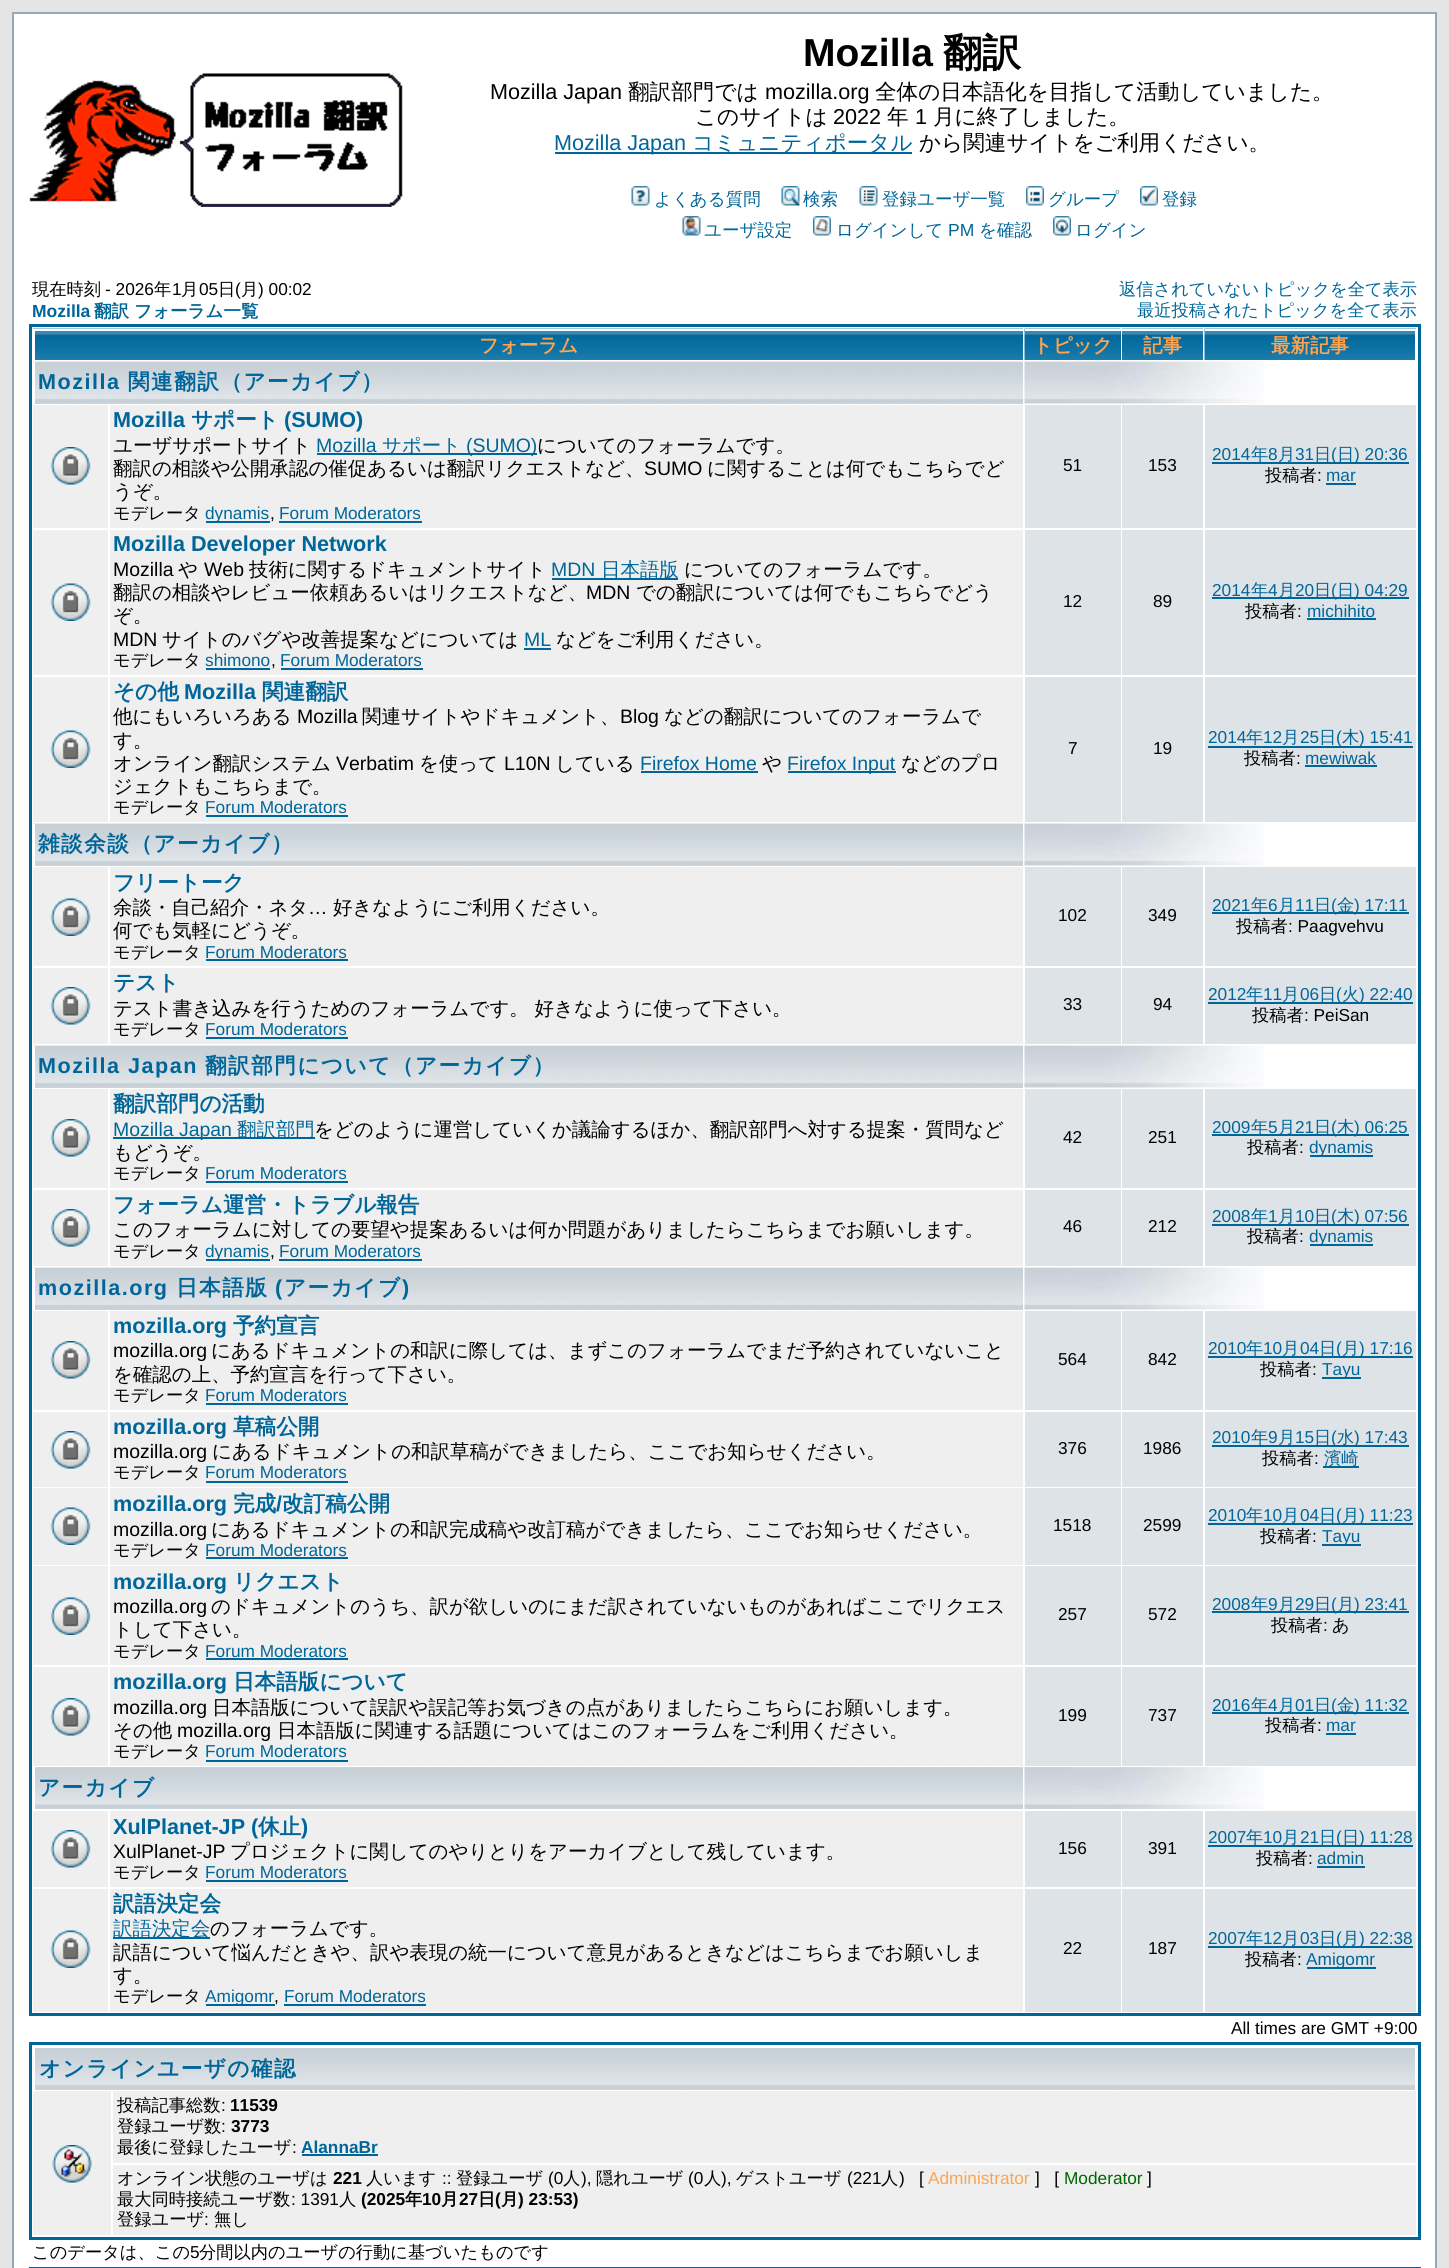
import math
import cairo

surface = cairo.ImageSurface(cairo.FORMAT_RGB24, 1449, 2268)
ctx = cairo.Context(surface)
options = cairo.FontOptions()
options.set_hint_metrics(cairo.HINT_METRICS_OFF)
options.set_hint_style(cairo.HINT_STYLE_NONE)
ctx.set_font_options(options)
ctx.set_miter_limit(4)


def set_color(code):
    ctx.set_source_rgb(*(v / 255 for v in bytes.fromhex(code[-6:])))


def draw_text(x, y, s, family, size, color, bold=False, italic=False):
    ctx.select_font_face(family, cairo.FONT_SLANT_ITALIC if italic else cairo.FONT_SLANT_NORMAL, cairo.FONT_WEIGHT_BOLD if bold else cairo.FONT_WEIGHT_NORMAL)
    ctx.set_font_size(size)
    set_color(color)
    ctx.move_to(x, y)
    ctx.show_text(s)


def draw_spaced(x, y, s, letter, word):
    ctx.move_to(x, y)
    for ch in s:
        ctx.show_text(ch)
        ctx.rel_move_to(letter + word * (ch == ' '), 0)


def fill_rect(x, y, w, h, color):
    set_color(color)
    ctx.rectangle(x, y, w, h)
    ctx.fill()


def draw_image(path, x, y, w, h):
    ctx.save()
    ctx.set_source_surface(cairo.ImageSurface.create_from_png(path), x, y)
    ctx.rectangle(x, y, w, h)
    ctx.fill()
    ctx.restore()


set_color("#e5e5e5")
ctx.paint()
set_color("#ffffff")
ctx.rectangle(13, 13, 1423, 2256)
ctx.fill_preserve()
set_color("#98aab1")
ctx.stroke()
draw_image("assets/img1.png", 29, 73, 374, 134)
draw_text(803, 66, "Mozilla", "Liberation Sans", 39, "#000000", bold=True)
draw_text(943, 66, "翻訳", "WenQuanYi Zen Hei", 39, "#000000", bold=True)
draw_text(490, 99, "Mozilla Japan", "Liberation Sans", 21.6, "#000000")
draw_text(628, 99, "翻訳部門では", "WenQuanYi Zen Hei Medium", 21.6, "#000000")
draw_text(765, 99, "mozilla.org", "Liberation Sans", 21.6, "#000000")
draw_text(875, 99, "全体の日本語化を目指して活動していました。", "WenQuanYi Zen Hei Medium", 21.6, "#000000")
draw_text(695, 124, "このサイトは", "WenQuanYi Zen Hei Medium", 21.6, "#000000")
draw_text(833, 124, "2022", "Liberation Sans", 21.6, "#000000")
draw_text(887, 124, "年", "WenQuanYi Zen Hei Medium", 21.6, "#000000")
draw_text(915, 124, "1", "Liberation Sans", 21.6, "#000000")
draw_text(933, 124, "月に終了しました。", "WenQuanYi Zen Hei Medium", 21.6, "#000000")
fill_rect(555, 152, 357, 2, "#006699")
draw_text(554, 150, "Mozilla Japan", "Liberation Sans", 21.6, "#006699")
draw_text(692, 150, "コミュニティポータル", "WenQuanYi Zen Hei Medium", 21.6, "#006699")
draw_text(919, 150, "から関連サイトをご利用ください。", "WenQuanYi Zen Hei Medium", 21.6, "#000000")
draw_image("assets/img2.png", 631, 186, 19, 20)
draw_text(654, 205, "よくある質問", "WenQuanYi Zen Hei Medium", 17.5, "#006699")
draw_image("assets/img3.png", 781, 186, 19, 20)
draw_text(803, 205, "検索", "WenQuanYi Zen Hei Medium", 17.5, "#006699")
draw_image("assets/img4.png", 859, 186, 19, 20)
draw_text(882, 205, "登録ユーザ一覧", "WenQuanYi Zen Hei Medium", 17.5, "#006699")
draw_image("assets/img5.png", 1026, 186, 18, 20)
draw_text(1048, 205, "グループ", "WenQuanYi Zen Hei Medium", 17.5, "#006699")
draw_image("assets/img6.png", 1140, 186, 18, 20)
draw_text(1162, 205, "登録", "WenQuanYi Zen Hei Medium", 17.5, "#006699")
draw_image("assets/img7.png", 682, 216, 19, 20)
draw_text(704, 236, "ユーザ設定", "WenQuanYi Zen Hei Medium", 17.5, "#006699")
draw_image("assets/img8.png", 813, 216, 18, 20)
draw_text(836, 236, "ログインして", "WenQuanYi Zen Hei Medium", 17.5, "#006699")
draw_text(948, 236, "PM", "Liberation Sans", 17.5, "#006699")
draw_text(979, 236, "を確認", "WenQuanYi Zen Hei Medium", 17.5, "#006699")
draw_image("assets/img9.png", 1053, 216, 18, 20)
draw_text(1075, 236, "ログイン", "WenQuanYi Zen Hei Medium", 17.5, "#006699")
draw_text(32, 295, "現在時刻", "WenQuanYi Zen Hei Medium", 17.25, "#000000")
draw_text(105, 295, "- 2026", "Liberation Sans", 17.25, "#000000")
draw_text(154, 295, "年", "WenQuanYi Zen Hei Medium", 17.25, "#000000")
draw_text(172, 295, "1", "Liberation Sans", 17.25, "#000000")
draw_text(181, 295, "月", "WenQuanYi Zen Hei Medium", 17.25, "#000000")
draw_text(199, 295, "05", "Liberation Sans", 17.25, "#000000")
draw_text(218, 295, "日", "WenQuanYi Zen Hei Medium", 17.25, "#000000")
draw_text(235, 295, "(", "Liberation Sans", 17.25, "#000000")
draw_text(241, 295, "月", "WenQuanYi Zen Hei Medium", 17.25, "#000000")
draw_text(258, 295, ") 00:02", "Liberation Sans", 17.25, "#000000")
draw_text(32, 317, "Mozilla", "Liberation Sans", 17.5, "#006699", bold=True)
draw_text(94, 317, "翻訳 フォーラム一覧", "WenQuanYi Zen Hei", 17.5, "#006699", bold=True)
draw_text(1119, 295, "返信されていないトピックを全て表示", "WenQuanYi Zen Hei Medium", 17.25, "#006699")
draw_text(1137, 316, "最近投稿されたトピックを全て表示", "WenQuanYi Zen Hei Medium", 17.25, "#006699")
ctx.rectangle(30.5, 325.5, 1389, 1689)
ctx.set_line_width(3)
ctx.stroke()
draw_image("assets/img10.png", 33, 328, 990, 32)
fill_rect(33, 329, 990, 2, "#ffffff")
fill_rect(33, 329, 2, 31, "#ffffff")
draw_text(479, 352, "フォーラム", "WenQuanYi Zen Hei", 19.45, "#ffa34f", bold=True)
fill_rect(1120, 331, 1, 29, "#006699")
draw_image("assets/img11.png", 1024, 328, 97, 32)
fill_rect(1025, 329, 96, 2, "#ffffff")
draw_text(1033, 352, "トピック", "WenQuanYi Zen Hei", 19.45, "#ffa34f", bold=True)
draw_image("assets/img12.png", 1122, 328, 81, 32)
fill_rect(1122, 329, 81, 2, "#ffffff")
draw_text(1143, 352, "記事", "WenQuanYi Zen Hei", 19.45, "#ffa34f", bold=True)
draw_image("assets/img13.png", 1204, 328, 212, 32)
fill_rect(1205, 329, 211, 2, "#ffffff")
fill_rect(1415, 329, 1, 31, "#ffffff")
draw_text(1271, 352, "最新記事", "WenQuanYi Zen Hei", 19.45, "#ffa34f", bold=True)
fill_rect(35, 403, 988, 1, "#d1d7dc")
draw_image("assets/img14.png", 33, 361, 990, 43)
fill_rect(33, 362, 2, 42, "#ffffff")
ctx.select_font_face("Liberation Sans", cairo.FONT_SLANT_NORMAL, cairo.FONT_WEIGHT_BOLD)
ctx.set_font_size(21.6)
set_color("#006699")
draw_spaced(38, 389, "Mozilla", 1.5, 0)
ctx.select_font_face("WenQuanYi Zen Hei", cairo.FONT_SLANT_NORMAL, cairo.FONT_WEIGHT_BOLD)
draw_spaced(128, 389, "関連翻訳（アーカイブ）", 1.5, 0)
draw_image("assets/img15.png", 1024, 361, 240, 43)
fill_rect(33, 405, 75, 123, "#efefef")
draw_image("assets/img16.png", 50, 447, 41, 38)
fill_rect(110, 405, 913, 123, "#efefef")
draw_text(113, 427, "Mozilla", "Liberation Sans", 21.6, "#006699", bold=True)
draw_text(191, 427, "サポート", "WenQuanYi Zen Hei", 21.6, "#006699", bold=True)
draw_text(284, 427, "(SUMO)", "Liberation Sans", 21.6, "#006699", bold=True)
draw_text(113, 452, "ユーザサポートサイト", "WenQuanYi Zen Hei Medium", 19.45, "#000000")
draw_text(316, 452, "Mozilla", "Liberation Sans", 19.45, "#006699")
fill_rect(317, 453, 220, 2, "#006699")
draw_text(382, 452, "サポート", "WenQuanYi Zen Hei Medium", 19.45, "#006699")
draw_text(466, 452, "(SUMO)", "Liberation Sans", 19.45, "#006699")
draw_text(537, 452, "についてのフォーラムです。", "WenQuanYi Zen Hei Medium", 19.45, "#000000")
draw_text(113, 475, "翻訳の相談や公開承認の催促あるいは翻訳リクエストなど、", "WenQuanYi Zen Hei Medium", 19.45, "#000000")
draw_text(644, 475, "SUMO", "Liberation Sans", 19.45, "#000000")
draw_text(707, 475, "に関することは何でもこちらでど", "WenQuanYi Zen Hei Medium", 19.45, "#000000")
draw_text(113, 498, "うぞ。", "WenQuanYi Zen Hei Medium", 19.45, "#000000")
draw_text(113, 519, "モデレータ", "WenQuanYi Zen Hei Medium", 17.25, "#000000")
fill_rect(206, 521, 64, 2, "#006699")
draw_text(205, 519, "dynamis", "Liberation Sans", 17.25, "#006699")
draw_text(270, 519, ",", "Liberation Sans", 17.25, "#000000")
fill_rect(279, 521, 143, 2, "#006699")
draw_text(279, 519, "Forum Moderators", "Liberation Sans", 17.25, "#006699")
fill_rect(1025, 405, 96, 123, "#dee3e7")
draw_text(1063, 471, "51", "Liberation Sans", 17.25, "#000000")
fill_rect(1122, 405, 81, 123, "#dee3e7")
draw_text(1148, 471, "153", "Liberation Sans", 17.25, "#000000")
fill_rect(1205, 405, 211, 123, "#dee3e7")
draw_text(1212, 460, "2014", "Liberation Sans", 17.25, "#006699")
fill_rect(1212, 462, 197, 2, "#006699")
draw_text(1251, 460, "年", "WenQuanYi Zen Hei Medium", 17.25, "#006699")
draw_text(1268, 460, "8", "Liberation Sans", 17.25, "#006699")
draw_text(1278, 460, "月", "WenQuanYi Zen Hei Medium", 17.25, "#006699")
draw_text(1295, 460, "31", "Liberation Sans", 17.25, "#006699")
draw_text(1314, 460, "日", "WenQuanYi Zen Hei Medium", 17.25, "#006699")
draw_text(1331, 460, "(", "Liberation Sans", 17.25, "#006699")
draw_text(1337, 460, "日", "WenQuanYi Zen Hei Medium", 17.25, "#006699")
draw_text(1354, 460, ") 20:36", "Liberation Sans", 17.25, "#006699")
draw_text(1265, 481, "投稿者", "WenQuanYi Zen Hei Medium", 17.25, "#000000")
draw_text(1317, 481, ":", "Liberation Sans", 17.25, "#000000")
draw_text(1326, 481, "mar", "Liberation Sans", 17.25, "#006699")
fill_rect(1326, 483, 30, 2, "#006699")
fill_rect(33, 530, 75, 145, "#efefef")
draw_image("assets/img17.png", 50, 583, 41, 38)
fill_rect(110, 530, 913, 145, "#efefef")
draw_text(113, 551, "Mozilla Developer Network", "Liberation Sans", 21.6, "#006699", bold=True)
draw_text(113, 576, "Mozilla", "Liberation Sans", 19.45, "#000000")
draw_text(178, 576, "や", "WenQuanYi Zen Hei Medium", 19.45, "#000000")
draw_text(204, 576, "Web", "Liberation Sans", 19.45, "#000000")
draw_text(249, 576, "技術に関するドキュメントサイト", "WenQuanYi Zen Hei Medium", 19.45, "#000000")
draw_text(551, 576, "MDN", "Liberation Sans", 19.45, "#006699")
fill_rect(552, 578, 126, 2, "#006699")
draw_text(601, 576, "日本語版", "WenQuanYi Zen Hei Medium", 19.45, "#006699")
draw_text(684, 576, "についてのフォーラムです。", "WenQuanYi Zen Hei Medium", 19.45, "#000000")
draw_text(113, 599, "翻訳の相談やレビュー依頼あるいはリクエストなど、", "WenQuanYi Zen Hei Medium", 19.45, "#000000")
draw_text(586, 599, "MDN", "Liberation Sans", 19.45, "#000000")
draw_text(636, 599, "での翻訳については何でもこちらでどう", "WenQuanYi Zen Hei Medium", 19.45, "#000000")
draw_text(113, 622, "ぞ。", "WenQuanYi Zen Hei Medium", 19.45, "#000000")
draw_text(113, 646, "MDN", "Liberation Sans", 19.45, "#000000")
draw_text(162, 646, "サイトのバグや改善提案などについては", "WenQuanYi Zen Hei Medium", 19.45, "#000000")
draw_text(524, 646, "ML", "Liberation Sans", 19.45, "#006699")
fill_rect(524, 648, 27, 2, "#006699")
draw_text(556, 646, "などをご利用ください。", "WenQuanYi Zen Hei Medium", 19.45, "#000000")
draw_text(113, 666, "モデレータ", "WenQuanYi Zen Hei Medium", 17.25, "#000000")
draw_text(205, 666, "shimono", "Liberation Sans", 17.25, "#006699")
draw_text(271, 666, ",", "Liberation Sans", 17.25, "#000000")
fill_rect(206, 668, 64, 2, "#006699")
fill_rect(281, 668, 142, 2, "#006699")
draw_text(280, 666, "Forum Moderators", "Liberation Sans", 17.25, "#006699")
fill_rect(1025, 530, 96, 145, "#dee3e7")
draw_text(1063, 607, "12", "Liberation Sans", 17.25, "#000000")
fill_rect(1122, 530, 81, 145, "#dee3e7")
draw_text(1153, 607, "89", "Liberation Sans", 17.25, "#000000")
fill_rect(1205, 530, 211, 145, "#dee3e7")
draw_text(1212, 596, "2014", "Liberation Sans", 17.25, "#006699")
fill_rect(1212, 597, 197, 2, "#006699")
draw_text(1251, 596, "年", "WenQuanYi Zen Hei Medium", 17.25, "#006699")
draw_text(1268, 596, "4", "Liberation Sans", 17.25, "#006699")
draw_text(1278, 596, "月", "WenQuanYi Zen Hei Medium", 17.25, "#006699")
draw_text(1295, 596, "20", "Liberation Sans", 17.25, "#006699")
draw_text(1314, 596, "日", "WenQuanYi Zen Hei Medium", 17.25, "#006699")
draw_text(1331, 596, "(", "Liberation Sans", 17.25, "#006699")
draw_text(1337, 596, "日", "WenQuanYi Zen Hei Medium", 17.25, "#006699")
draw_text(1354, 596, ") 04:29", "Liberation Sans", 17.25, "#006699")
draw_text(1245, 617, "投稿者", "WenQuanYi Zen Hei Medium", 17.25, "#000000")
draw_text(1297, 617, ":", "Liberation Sans", 17.25, "#000000")
draw_text(1307, 617, "michihito", "Liberation Sans", 17.25, "#006699")
fill_rect(1307, 618, 69, 2, "#006699")
fill_rect(33, 677, 75, 145, "#efefef")
draw_image("assets/img17.png", 50, 730, 41, 38)
fill_rect(110, 677, 913, 145, "#efefef")
draw_text(113, 699, "その他", "WenQuanYi Zen Hei", 21.6, "#006699", bold=True)
draw_text(184, 699, "Mozilla", "Liberation Sans", 21.6, "#006699", bold=True)
draw_text(262, 699, "関連翻訳", "WenQuanYi Zen Hei", 21.6, "#006699", bold=True)
draw_text(113, 723, "他にもいろいろある", "WenQuanYi Zen Hei Medium", 19.45, "#000000")
draw_text(297, 723, "Mozilla", "Liberation Sans", 19.45, "#000000")
draw_text(362, 723, "関連サイトやドキュメント、", "WenQuanYi Zen Hei Medium", 19.45, "#000000")
draw_text(620, 723, "Blog", "Liberation Sans", 19.45, "#000000")
draw_text(664, 723, "などの翻訳についてのフォーラムで", "WenQuanYi Zen Hei Medium", 19.45, "#000000")
draw_text(113, 747, "す。", "WenQuanYi Zen Hei Medium", 19.45, "#000000")
draw_text(113, 770, "オンライン翻訳システム", "WenQuanYi Zen Hei Medium", 19.45, "#000000")
draw_text(336, 770, "Verbatim", "Liberation Sans", 19.45, "#000000")
draw_text(419, 770, "を使って", "WenQuanYi Zen Hei Medium", 19.45, "#000000")
draw_text(504, 770, "L10N", "Liberation Sans", 19.45, "#000000")
draw_text(555, 770, "している", "WenQuanYi Zen Hei Medium", 19.45, "#000000")
draw_text(640, 770, "Firefox Home", "Liberation Sans", 19.45, "#006699")
fill_rect(641, 771, 117, 2, "#006699")
draw_text(762, 770, "や", "WenQuanYi Zen Hei Medium", 19.45, "#000000")
fill_rect(788, 771, 108, 2, "#006699")
draw_text(787, 770, "Firefox Input", "Liberation Sans", 19.45, "#006699")
draw_text(901, 770, "などのプロ", "WenQuanYi Zen Hei Medium", 19.45, "#000000")
draw_text(113, 793, "ジェクトもこちらまで。", "WenQuanYi Zen Hei Medium", 19.45, "#000000")
draw_text(113, 813, "モデレータ", "WenQuanYi Zen Hei Medium", 17.25, "#000000")
draw_text(205, 813, "Forum Moderators", "Liberation Sans", 17.25, "#006699")
fill_rect(206, 815, 142, 2, "#006699")
fill_rect(1025, 677, 96, 145, "#dee3e7")
draw_text(1068, 754, "7", "Liberation Sans", 17.25, "#000000")
fill_rect(1122, 677, 81, 145, "#dee3e7")
draw_text(1153, 754, "19", "Liberation Sans", 17.25, "#000000")
fill_rect(1205, 677, 211, 145, "#dee3e7")
draw_text(1208, 743, "2014", "Liberation Sans", 17.25, "#006699")
draw_text(1246, 743, "年", "WenQuanYi Zen Hei Medium", 17.25, "#006699")
draw_text(1263, 743, "12", "Liberation Sans", 17.25, "#006699")
draw_text(1282, 743, "月", "WenQuanYi Zen Hei Medium", 17.25, "#006699")
draw_text(1300, 743, "25", "Liberation Sans", 17.25, "#006699")
draw_text(1319, 743, "日", "WenQuanYi Zen Hei Medium", 17.25, "#006699")
fill_rect(1208, 746, 205, 2, "#006699")
draw_text(1336, 743, "(", "Liberation Sans", 17.25, "#006699")
draw_text(1342, 743, "木", "WenQuanYi Zen Hei Medium", 17.25, "#006699")
draw_text(1359, 743, ") 15:41", "Liberation Sans", 17.25, "#006699")
draw_text(1244, 764, "投稿者", "WenQuanYi Zen Hei Medium", 17.25, "#000000")
draw_text(1296, 764, ":", "Liberation Sans", 17.25, "#000000")
draw_text(1305, 764, "mewiwak", "Liberation Sans", 17.25, "#006699")
fill_rect(1305, 765, 72, 2, "#006699")
fill_rect(35, 865, 988, 1, "#d1d7dc")
draw_image("assets/img14.png", 33, 823, 990, 43)
fill_rect(33, 824, 2, 42, "#ffffff")
ctx.select_font_face("WenQuanYi Zen Hei", cairo.FONT_SLANT_NORMAL, cairo.FONT_WEIGHT_BOLD)
ctx.set_font_size(21.6)
set_color("#006699")
draw_spaced(38, 851, "雑談余談（アーカイブ）", 1.5, 0)
draw_image("assets/img18.png", 1024, 823, 240, 43)
fill_rect(33, 867, 75, 99, "#efefef")
draw_image("assets/img17.png", 50, 898, 41, 38)
fill_rect(110, 867, 913, 99, "#efefef")
draw_text(113, 890, "フリートーク", "WenQuanYi Zen Hei", 21.6, "#006699", bold=True)
draw_text(113, 914, "余談・自己紹介・ネタ", "WenQuanYi Zen Hei Medium", 19.45, "#000000")
draw_text(308, 914, "…", "Liberation Sans", 19.45, "#000000")
draw_text(333, 914, "好きなようにご利用ください。", "WenQuanYi Zen Hei Medium", 19.45, "#000000")
draw_text(113, 937, "何でも気軽にどうぞ。", "WenQuanYi Zen Hei Medium", 19.45, "#000000")
draw_text(113, 958, "モデレータ", "WenQuanYi Zen Hei Medium", 17.25, "#000000")
draw_text(205, 958, "Forum Moderators", "Liberation Sans", 17.25, "#006699")
fill_rect(206, 959, 142, 2, "#006699")
fill_rect(1025, 867, 96, 99, "#dee3e7")
draw_text(1058, 921, "102", "Liberation Sans", 17.25, "#000000")
fill_rect(1122, 867, 81, 99, "#dee3e7")
draw_text(1148, 921, "349", "Liberation Sans", 17.25, "#000000")
fill_rect(1205, 867, 211, 99, "#dee3e7")
draw_text(1212, 911, "2021", "Liberation Sans", 17.25, "#006699")
fill_rect(1212, 912, 197, 2, "#006699")
draw_text(1251, 911, "年", "WenQuanYi Zen Hei Medium", 17.25, "#006699")
draw_text(1268, 911, "6", "Liberation Sans", 17.25, "#006699")
draw_text(1278, 911, "月", "WenQuanYi Zen Hei Medium", 17.25, "#006699")
draw_text(1295, 911, "11", "Liberation Sans", 17.25, "#006699")
draw_text(1314, 911, "日", "WenQuanYi Zen Hei Medium", 17.25, "#006699")
draw_text(1331, 911, "(", "Liberation Sans", 17.25, "#006699")
draw_text(1337, 911, "金", "WenQuanYi Zen Hei Medium", 17.25, "#006699")
draw_text(1354, 911, ") 17:11", "Liberation Sans", 17.25, "#006699")
draw_text(1236, 932, "投稿者", "WenQuanYi Zen Hei Medium", 17.25, "#000000")
draw_text(1288, 932, ": Paagvehvu", "Liberation Sans", 17.25, "#000000")
fill_rect(33, 968, 75, 76, "#efefef")
draw_image("assets/img16.png", 50, 987, 41, 38)
fill_rect(110, 968, 913, 76, "#efefef")
draw_text(113, 990, "テスト", "WenQuanYi Zen Hei", 21.6, "#006699", bold=True)
draw_text(113, 1015, "テスト書き込みを行うためのフォーラムです。 好きなように使って下さい。", "WenQuanYi Zen Hei Medium", 19.45, "#000000")
draw_text(113, 1035, "モデレータ", "WenQuanYi Zen Hei Medium", 17.25, "#000000")
draw_text(205, 1035, "Forum Moderators", "Liberation Sans", 17.25, "#006699")
fill_rect(206, 1037, 142, 2, "#006699")
fill_rect(1025, 968, 96, 76, "#dee3e7")
draw_text(1063, 1010, "33", "Liberation Sans", 17.25, "#000000")
fill_rect(1122, 968, 81, 76, "#dee3e7")
draw_text(1153, 1010, "94", "Liberation Sans", 17.25, "#000000")
fill_rect(1205, 968, 211, 76, "#dee3e7")
draw_text(1208, 1000, "2012", "Liberation Sans", 17.25, "#006699")
fill_rect(1208, 1002, 205, 2, "#006699")
draw_text(1246, 1000, "年", "WenQuanYi Zen Hei Medium", 17.25, "#006699")
draw_text(1263, 1000, "11", "Liberation Sans", 17.25, "#006699")
draw_text(1282, 1000, "月", "WenQuanYi Zen Hei Medium", 17.25, "#006699")
draw_text(1300, 1000, "06", "Liberation Sans", 17.25, "#006699")
draw_text(1319, 1000, "日", "WenQuanYi Zen Hei Medium", 17.25, "#006699")
draw_text(1336, 1000, "(", "Liberation Sans", 17.25, "#006699")
draw_text(1342, 1000, "火", "WenQuanYi Zen Hei Medium", 17.25, "#006699")
draw_text(1359, 1000, ") 22:40", "Liberation Sans", 17.25, "#006699")
draw_text(1252, 1021, "投稿者", "WenQuanYi Zen Hei Medium", 17.25, "#000000")
draw_text(1304, 1021, ": PeiSan", "Liberation Sans", 17.25, "#000000")
fill_rect(35, 1087, 988, 1, "#d1d7dc")
draw_image("assets/img14.png", 33, 1045, 990, 43)
fill_rect(33, 1046, 2, 42, "#ffffff")
ctx.select_font_face("Liberation Sans", cairo.FONT_SLANT_NORMAL, cairo.FONT_WEIGHT_BOLD)
ctx.set_font_size(21.6)
set_color("#006699")
draw_spaced(38, 1073, "Mozilla Japan", 1.5, 0)
ctx.select_font_face("WenQuanYi Zen Hei", cairo.FONT_SLANT_NORMAL, cairo.FONT_WEIGHT_BOLD)
draw_spaced(205, 1073, "翻訳部門について（アーカイブ）", 1.5, 0)
draw_image("assets/img19.png", 1024, 1045, 240, 43)
fill_rect(33, 1089, 75, 99, "#efefef")
draw_image("assets/img16.png", 50, 1119, 41, 38)
fill_rect(110, 1089, 913, 99, "#efefef")
draw_text(113, 1111, "翻訳部門の活動", "WenQuanYi Zen Hei", 21.6, "#006699", bold=True)
fill_rect(113, 1137, 202, 2, "#006699")
draw_text(113, 1136, "Mozilla Japan", "Liberation Sans", 19.45, "#006699")
draw_text(237, 1136, "翻訳部門", "WenQuanYi Zen Hei Medium", 19.45, "#006699")
draw_text(314, 1136, "をどのように運営していくか議論するほか、翻訳部門へ対する提案・質問など", "WenQuanYi Zen Hei Medium", 19.45, "#000000")
draw_text(113, 1159, "もどうぞ。", "WenQuanYi Zen Hei Medium", 19.45, "#000000")
draw_text(113, 1179, "モデレータ", "WenQuanYi Zen Hei Medium", 17.25, "#000000")
draw_text(205, 1179, "Forum Moderators", "Liberation Sans", 17.25, "#006699")
fill_rect(206, 1181, 142, 2, "#006699")
fill_rect(1025, 1089, 96, 99, "#dee3e7")
draw_text(1063, 1143, "42", "Liberation Sans", 17.25, "#000000")
fill_rect(1122, 1089, 81, 99, "#dee3e7")
draw_text(1148, 1143, "251", "Liberation Sans", 17.25, "#000000")
fill_rect(1205, 1089, 211, 99, "#dee3e7")
draw_text(1212, 1133, "2009", "Liberation Sans", 17.25, "#006699")
fill_rect(1212, 1134, 197, 2, "#006699")
draw_text(1251, 1133, "年", "WenQuanYi Zen Hei Medium", 17.25, "#006699")
draw_text(1268, 1133, "5", "Liberation Sans", 17.25, "#006699")
draw_text(1278, 1133, "月", "WenQuanYi Zen Hei Medium", 17.25, "#006699")
draw_text(1295, 1133, "21", "Liberation Sans", 17.25, "#006699")
draw_text(1314, 1133, "日", "WenQuanYi Zen Hei Medium", 17.25, "#006699")
draw_text(1331, 1133, "(", "Liberation Sans", 17.25, "#006699")
draw_text(1337, 1133, "木", "WenQuanYi Zen Hei Medium", 17.25, "#006699")
draw_text(1354, 1133, ") 06:25", "Liberation Sans", 17.25, "#006699")
draw_text(1247, 1153, "投稿者", "WenQuanYi Zen Hei Medium", 17.25, "#000000")
draw_text(1299, 1153, ":", "Liberation Sans", 17.25, "#000000")
fill_rect(1310, 1155, 63, 2, "#006699")
draw_text(1309, 1153, "dynamis", "Liberation Sans", 17.25, "#006699")
fill_rect(33, 1190, 75, 76, "#efefef")
draw_image("assets/img16.png", 50, 1209, 41, 38)
fill_rect(110, 1190, 913, 76, "#efefef")
draw_text(113, 1212, "フォーラム運営・トラブル報告", "WenQuanYi Zen Hei", 21.6, "#006699", bold=True)
draw_text(113, 1236, "このフォーラムに対しての要望や提案あるいは何か問題がありましたらこちらまでお願いします。", "WenQuanYi Zen Hei Medium", 19.45, "#000000")
draw_text(113, 1257, "モデレータ", "WenQuanYi Zen Hei Medium", 17.25, "#000000")
fill_rect(206, 1259, 64, 2, "#006699")
draw_text(205, 1257, "dynamis", "Liberation Sans", 17.25, "#006699")
draw_text(270, 1257, ",", "Liberation Sans", 17.25, "#000000")
fill_rect(279, 1259, 143, 2, "#006699")
draw_text(279, 1257, "Forum Moderators", "Liberation Sans", 17.25, "#006699")
fill_rect(1025, 1190, 96, 76, "#dee3e7")
draw_text(1063, 1232, "46", "Liberation Sans", 17.25, "#000000")
fill_rect(1122, 1190, 81, 76, "#dee3e7")
draw_text(1148, 1232, "212", "Liberation Sans", 17.25, "#000000")
fill_rect(1205, 1190, 211, 76, "#dee3e7")
draw_text(1212, 1222, "2008", "Liberation Sans", 17.25, "#006699")
fill_rect(1212, 1224, 197, 2, "#006699")
draw_text(1251, 1222, "年", "WenQuanYi Zen Hei Medium", 17.25, "#006699")
draw_text(1268, 1222, "1", "Liberation Sans", 17.25, "#006699")
draw_text(1278, 1222, "月", "WenQuanYi Zen Hei Medium", 17.25, "#006699")
draw_text(1295, 1222, "10", "Liberation Sans", 17.25, "#006699")
draw_text(1314, 1222, "日", "WenQuanYi Zen Hei Medium", 17.25, "#006699")
draw_text(1331, 1222, "(", "Liberation Sans", 17.25, "#006699")
draw_text(1337, 1222, "木", "WenQuanYi Zen Hei Medium", 17.25, "#006699")
draw_text(1354, 1222, ") 07:56", "Liberation Sans", 17.25, "#006699")
draw_text(1247, 1242, "投稿者", "WenQuanYi Zen Hei Medium", 17.25, "#000000")
draw_text(1299, 1242, ":", "Liberation Sans", 17.25, "#000000")
fill_rect(1310, 1244, 63, 2, "#006699")
draw_text(1309, 1242, "dynamis", "Liberation Sans", 17.25, "#006699")
fill_rect(35, 1309, 988, 1, "#d1d7dc")
draw_image("assets/img14.png", 33, 1267, 990, 43)
fill_rect(33, 1268, 2, 42, "#ffffff")
ctx.select_font_face("Liberation Sans", cairo.FONT_SLANT_NORMAL, cairo.FONT_WEIGHT_BOLD)
ctx.set_font_size(21.6)
set_color("#006699")
draw_spaced(38, 1295, "mozilla.org", 1.5, 0)
ctx.select_font_face("WenQuanYi Zen Hei", cairo.FONT_SLANT_NORMAL, cairo.FONT_WEIGHT_BOLD)
draw_spaced(176, 1295, "日本語版", 1.5, 0)
ctx.select_font_face("Liberation Sans", cairo.FONT_SLANT_NORMAL, cairo.FONT_WEIGHT_BOLD)
draw_spaced(275, 1295, "(", 1.5, 0)
ctx.select_font_face("WenQuanYi Zen Hei", cairo.FONT_SLANT_NORMAL, cairo.FONT_WEIGHT_BOLD)
draw_spaced(284, 1295, "アーカイブ", 1.5, 0)
ctx.select_font_face("Liberation Sans", cairo.FONT_SLANT_NORMAL, cairo.FONT_WEIGHT_BOLD)
draw_spaced(402, 1295, ")", 1.5, 0)
draw_image("assets/img20.png", 1024, 1267, 240, 43)
fill_rect(33, 1311, 75, 99, "#efefef")
draw_image("assets/img16.png", 50, 1341, 41, 38)
fill_rect(110, 1311, 913, 99, "#efefef")
draw_text(113, 1333, "mozilla.org", "Liberation Sans", 21.6, "#006699", bold=True)
draw_text(233, 1333, "予約宣言", "WenQuanYi Zen Hei", 21.6, "#006699", bold=True)
draw_text(113, 1357, "mozilla.org", "Liberation Sans", 19.45, "#000000")
draw_text(211, 1357, "にあるドキュメントの和訳に際しては、まずこのフォーラムでまだ予約されていないこと", "WenQuanYi Zen Hei Medium", 19.45, "#000000")
draw_text(113, 1381, "を確認の上、予約宣言を行って下さい。", "WenQuanYi Zen Hei Medium", 19.45, "#000000")
draw_text(113, 1401, "モデレータ", "WenQuanYi Zen Hei Medium", 17.25, "#000000")
draw_text(205, 1401, "Forum Moderators", "Liberation Sans", 17.25, "#006699")
fill_rect(206, 1403, 142, 2, "#006699")
fill_rect(1025, 1311, 96, 99, "#dee3e7")
draw_text(1058, 1365, "564", "Liberation Sans", 17.25, "#000000")
fill_rect(1122, 1311, 81, 99, "#dee3e7")
draw_text(1148, 1365, "842", "Liberation Sans", 17.25, "#000000")
fill_rect(1205, 1311, 211, 99, "#dee3e7")
draw_text(1208, 1354, "2010", "Liberation Sans", 17.25, "#006699")
fill_rect(1208, 1356, 205, 2, "#006699")
draw_text(1246, 1354, "年", "WenQuanYi Zen Hei Medium", 17.25, "#006699")
draw_text(1263, 1354, "10", "Liberation Sans", 17.25, "#006699")
draw_text(1282, 1354, "月", "WenQuanYi Zen Hei Medium", 17.25, "#006699")
draw_text(1300, 1354, "04", "Liberation Sans", 17.25, "#006699")
draw_text(1319, 1354, "日", "WenQuanYi Zen Hei Medium", 17.25, "#006699")
draw_text(1336, 1354, "(", "Liberation Sans", 17.25, "#006699")
draw_text(1342, 1354, "月", "WenQuanYi Zen Hei Medium", 17.25, "#006699")
draw_text(1359, 1354, ") 17:16", "Liberation Sans", 17.25, "#006699")
draw_text(1260, 1375, "投稿者", "WenQuanYi Zen Hei Medium", 17.25, "#000000")
draw_text(1312, 1375, ":", "Liberation Sans", 17.25, "#000000")
fill_rect(1322, 1377, 39, 2, "#006699")
draw_text(1322, 1375, "Tayu", "Liberation Sans", 17.25, "#006699")
fill_rect(33, 1412, 75, 75, "#efefef")
draw_image("assets/img16.png", 50, 1431, 41, 38)
fill_rect(110, 1412, 913, 75, "#efefef")
draw_text(113, 1434, "mozilla.org", "Liberation Sans", 21.6, "#006699", bold=True)
draw_text(233, 1434, "草稿公開", "WenQuanYi Zen Hei", 21.6, "#006699", bold=True)
draw_text(113, 1458, "mozilla.org", "Liberation Sans", 19.45, "#000000")
draw_text(212, 1458, "にあるドキュメントの和訳草稿ができましたら、ここでお知らせください。", "WenQuanYi Zen Hei Medium", 19.45, "#000000")
draw_text(113, 1478, "モデレータ", "WenQuanYi Zen Hei Medium", 17.25, "#000000")
draw_text(205, 1478, "Forum Moderators", "Liberation Sans", 17.25, "#006699")
fill_rect(206, 1481, 142, 2, "#006699")
fill_rect(1025, 1412, 96, 75, "#dee3e7")
draw_text(1058, 1454, "376", "Liberation Sans", 17.25, "#000000")
fill_rect(1122, 1412, 81, 75, "#dee3e7")
draw_text(1143, 1454, "1986", "Liberation Sans", 17.25, "#000000")
fill_rect(1205, 1412, 211, 75, "#dee3e7")
draw_text(1212, 1443, "2010", "Liberation Sans", 17.25, "#006699")
fill_rect(1212, 1445, 197, 2, "#006699")
draw_text(1251, 1443, "年", "WenQuanYi Zen Hei Medium", 17.25, "#006699")
draw_text(1268, 1443, "9", "Liberation Sans", 17.25, "#006699")
draw_text(1278, 1443, "月", "WenQuanYi Zen Hei Medium", 17.25, "#006699")
draw_text(1295, 1443, "15", "Liberation Sans", 17.25, "#006699")
draw_text(1314, 1443, "日", "WenQuanYi Zen Hei Medium", 17.25, "#006699")
draw_text(1331, 1443, "(", "Liberation Sans", 17.25, "#006699")
draw_text(1337, 1443, "水", "WenQuanYi Zen Hei Medium", 17.25, "#006699")
draw_text(1354, 1443, ") 17:43", "Liberation Sans", 17.25, "#006699")
draw_text(1262, 1464, "投稿者", "WenQuanYi Zen Hei Medium", 17.25, "#000000")
draw_text(1314, 1464, ":", "Liberation Sans", 17.25, "#000000")
fill_rect(1323, 1466, 36, 2, "#006699")
draw_text(1324, 1464, "濱崎", "WenQuanYi Zen Hei Medium", 17.25, "#006699")
fill_rect(33, 1488, 75, 77, "#efefef")
draw_image("assets/img17.png", 50, 1507, 41, 38)
fill_rect(110, 1488, 913, 77, "#efefef")
draw_text(113, 1511, "mozilla.org", "Liberation Sans", 21.6, "#006699", bold=True)
draw_text(233, 1511, "完成", "WenQuanYi Zen Hei", 21.6, "#006699", bold=True)
draw_text(276, 1511, "/", "Liberation Sans", 21.6, "#006699", bold=True)
draw_text(282, 1511, "改訂稿公開", "WenQuanYi Zen Hei", 21.6, "#006699", bold=True)
draw_text(113, 1536, "mozilla.org", "Liberation Sans", 19.45, "#000000")
draw_text(211, 1536, "にあるドキュメントの和訳完成稿や改訂稿ができましたら、ここでお知らせください。", "WenQuanYi Zen Hei Medium", 19.45, "#000000")
draw_text(113, 1556, "モデレータ", "WenQuanYi Zen Hei Medium", 17.25, "#000000")
draw_text(205, 1556, "Forum Moderators", "Liberation Sans", 17.25, "#006699")
fill_rect(206, 1557, 142, 2, "#006699")
fill_rect(1025, 1488, 96, 77, "#dee3e7")
draw_text(1053, 1531, "1518", "Liberation Sans", 17.25, "#000000")
fill_rect(1122, 1488, 81, 77, "#dee3e7")
draw_text(1143, 1531, "2599", "Liberation Sans", 17.25, "#000000")
fill_rect(1205, 1488, 211, 77, "#dee3e7")
draw_text(1208, 1521, "2010", "Liberation Sans", 17.25, "#006699")
fill_rect(1208, 1523, 205, 2, "#006699")
draw_text(1246, 1521, "年", "WenQuanYi Zen Hei Medium", 17.25, "#006699")
draw_text(1263, 1521, "10", "Liberation Sans", 17.25, "#006699")
draw_text(1282, 1521, "月", "WenQuanYi Zen Hei Medium", 17.25, "#006699")
draw_text(1300, 1521, "04", "Liberation Sans", 17.25, "#006699")
draw_text(1319, 1521, "日", "WenQuanYi Zen Hei Medium", 17.25, "#006699")
draw_text(1336, 1521, "(", "Liberation Sans", 17.25, "#006699")
draw_text(1342, 1521, "月", "WenQuanYi Zen Hei Medium", 17.25, "#006699")
draw_text(1359, 1521, ") 11:23", "Liberation Sans", 17.25, "#006699")
draw_text(1260, 1542, "投稿者", "WenQuanYi Zen Hei Medium", 17.25, "#000000")
draw_text(1312, 1542, ":", "Liberation Sans", 17.25, "#000000")
fill_rect(1322, 1544, 39, 2, "#006699")
draw_text(1322, 1542, "Tayu", "Liberation Sans", 17.25, "#006699")
fill_rect(33, 1566, 75, 99, "#efefef")
draw_image("assets/img17.png", 50, 1597, 41, 38)
fill_rect(110, 1566, 913, 99, "#efefef")
draw_text(113, 1589, "mozilla.org", "Liberation Sans", 21.6, "#006699", bold=True)
draw_text(233, 1589, "リクエスト", "WenQuanYi Zen Hei", 21.6, "#006699", bold=True)
draw_text(113, 1613, "mozilla.org", "Liberation Sans", 19.45, "#000000")
draw_text(211, 1613, "のドキュメントのうち、訳が欲しいのにまだ訳されていないものがあればここでリクエス", "WenQuanYi Zen Hei Medium", 19.45, "#000000")
draw_text(113, 1636, "トして下さい。", "WenQuanYi Zen Hei Medium", 19.45, "#000000")
draw_text(113, 1657, "モデレータ", "WenQuanYi Zen Hei Medium", 17.25, "#000000")
draw_text(205, 1657, "Forum Moderators", "Liberation Sans", 17.25, "#006699")
fill_rect(206, 1658, 142, 2, "#006699")
fill_rect(1025, 1566, 96, 99, "#dee3e7")
draw_text(1058, 1620, "257", "Liberation Sans", 17.25, "#000000")
fill_rect(1122, 1566, 81, 99, "#dee3e7")
draw_text(1148, 1620, "572", "Liberation Sans", 17.25, "#000000")
fill_rect(1205, 1566, 211, 99, "#dee3e7")
draw_text(1212, 1610, "2008", "Liberation Sans", 17.25, "#006699")
fill_rect(1212, 1611, 197, 2, "#006699")
draw_text(1251, 1610, "年", "WenQuanYi Zen Hei Medium", 17.25, "#006699")
draw_text(1268, 1610, "9", "Liberation Sans", 17.25, "#006699")
draw_text(1278, 1610, "月", "WenQuanYi Zen Hei Medium", 17.25, "#006699")
draw_text(1295, 1610, "29", "Liberation Sans", 17.25, "#006699")
draw_text(1314, 1610, "日", "WenQuanYi Zen Hei Medium", 17.25, "#006699")
draw_text(1331, 1610, "(", "Liberation Sans", 17.25, "#006699")
draw_text(1337, 1610, "月", "WenQuanYi Zen Hei Medium", 17.25, "#006699")
draw_text(1354, 1610, ") 23:41", "Liberation Sans", 17.25, "#006699")
draw_text(1271, 1631, "投稿者", "WenQuanYi Zen Hei Medium", 17.25, "#000000")
draw_text(1323, 1631, ":", "Liberation Sans", 17.25, "#000000")
draw_text(1332, 1631, "あ", "WenQuanYi Zen Hei Medium", 17.25, "#000000")
fill_rect(33, 1667, 75, 99, "#efefef")
draw_image("assets/img16.png", 50, 1698, 41, 38)
fill_rect(110, 1667, 913, 99, "#efefef")
draw_text(113, 1689, "mozilla.org", "Liberation Sans", 21.6, "#006699", bold=True)
draw_text(233, 1689, "日本語版について", "WenQuanYi Zen Hei", 21.6, "#006699", bold=True)
draw_text(113, 1714, "mozilla.org", "Liberation Sans", 19.45, "#000000")
draw_text(212, 1714, "日本語版について誤訳や誤記等お気づきの点がありましたらこちらにお願いします。", "WenQuanYi Zen Hei Medium", 19.45, "#000000")
draw_text(113, 1737, "その他", "WenQuanYi Zen Hei Medium", 19.45, "#000000")
draw_text(177, 1737, "mozilla.org", "Liberation Sans", 19.45, "#000000")
draw_text(277, 1737, "日本語版に関連する話題についてはこのフォーラムをご利用ください。", "WenQuanYi Zen Hei Medium", 19.45, "#000000")
draw_text(113, 1757, "モデレータ", "WenQuanYi Zen Hei Medium", 17.25, "#000000")
draw_text(205, 1757, "Forum Moderators", "Liberation Sans", 17.25, "#006699")
fill_rect(206, 1760, 142, 2, "#006699")
fill_rect(1025, 1667, 96, 99, "#dee3e7")
draw_text(1058, 1721, "199", "Liberation Sans", 17.25, "#000000")
fill_rect(1122, 1667, 81, 99, "#dee3e7")
draw_text(1148, 1721, "737", "Liberation Sans", 17.25, "#000000")
fill_rect(1205, 1667, 211, 99, "#dee3e7")
draw_text(1212, 1711, "2016", "Liberation Sans", 17.25, "#006699")
fill_rect(1212, 1712, 197, 2, "#006699")
draw_text(1251, 1711, "年", "WenQuanYi Zen Hei Medium", 17.25, "#006699")
draw_text(1268, 1711, "4", "Liberation Sans", 17.25, "#006699")
draw_text(1278, 1711, "月", "WenQuanYi Zen Hei Medium", 17.25, "#006699")
draw_text(1295, 1711, "01", "Liberation Sans", 17.25, "#006699")
draw_text(1314, 1711, "日", "WenQuanYi Zen Hei Medium", 17.25, "#006699")
draw_text(1331, 1711, "(", "Liberation Sans", 17.25, "#006699")
draw_text(1337, 1711, "金", "WenQuanYi Zen Hei Medium", 17.25, "#006699")
draw_text(1354, 1711, ") 11:32", "Liberation Sans", 17.25, "#006699")
draw_text(1265, 1731, "投稿者", "WenQuanYi Zen Hei Medium", 17.25, "#000000")
draw_text(1317, 1731, ":", "Liberation Sans", 17.25, "#000000")
draw_text(1326, 1731, "mar", "Liberation Sans", 17.25, "#006699")
fill_rect(1326, 1733, 30, 2, "#006699")
draw_image("assets/img21.png", 35, 1767, 988, 42)
ctx.select_font_face("WenQuanYi Zen Hei", cairo.FONT_SLANT_NORMAL, cairo.FONT_WEIGHT_BOLD)
ctx.set_font_size(21.6)
draw_spaced(38, 1795, "アーカイブ", 1.5, 0)
draw_image("assets/img22.png", 1024, 1767, 240, 42)
fill_rect(33, 1811, 75, 76, "#efefef")
draw_image("assets/img16.png", 50, 1830, 41, 38)
fill_rect(110, 1811, 913, 76, "#efefef")
draw_text(113, 1834, "XulPlanet-JP (", "Liberation Sans", 21.6, "#006699", bold=True)
draw_text(258, 1834, "休止", "WenQuanYi Zen Hei", 21.6, "#006699", bold=True)
draw_text(301, 1834, ")", "Liberation Sans", 21.6, "#006699", bold=True)
draw_text(113, 1858, "XulPlanet-JP", "Liberation Sans", 19.45, "#000000")
draw_text(230, 1858, "プロジェクトに関してのやりとりをアーカイブとして残しています。", "WenQuanYi Zen Hei Medium", 19.45, "#000000")
draw_text(113, 1878, "モデレータ", "WenQuanYi Zen Hei Medium", 17.25, "#000000")
draw_text(205, 1878, "Forum Moderators", "Liberation Sans", 17.25, "#006699")
fill_rect(206, 1880, 142, 2, "#006699")
fill_rect(1025, 1811, 96, 76, "#dee3e7")
draw_text(1058, 1854, "156", "Liberation Sans", 17.25, "#000000")
fill_rect(1122, 1811, 81, 76, "#dee3e7")
draw_text(1148, 1854, "391", "Liberation Sans", 17.25, "#000000")
fill_rect(1205, 1811, 211, 76, "#dee3e7")
draw_text(1208, 1843, "2007", "Liberation Sans", 17.25, "#006699")
fill_rect(1208, 1845, 205, 2, "#006699")
draw_text(1246, 1843, "年", "WenQuanYi Zen Hei Medium", 17.25, "#006699")
draw_text(1263, 1843, "10", "Liberation Sans", 17.25, "#006699")
draw_text(1282, 1843, "月", "WenQuanYi Zen Hei Medium", 17.25, "#006699")
draw_text(1300, 1843, "21", "Liberation Sans", 17.25, "#006699")
draw_text(1319, 1843, "日", "WenQuanYi Zen Hei Medium", 17.25, "#006699")
draw_text(1336, 1843, "(", "Liberation Sans", 17.25, "#006699")
draw_text(1342, 1843, "日", "WenQuanYi Zen Hei Medium", 17.25, "#006699")
draw_text(1359, 1843, ") 11:28", "Liberation Sans", 17.25, "#006699")
draw_text(1256, 1864, "投稿者", "WenQuanYi Zen Hei Medium", 17.25, "#000000")
draw_text(1308, 1864, ":", "Liberation Sans", 17.25, "#000000")
draw_text(1317, 1864, "admin", "Liberation Sans", 17.25, "#006699")
fill_rect(1317, 1866, 48, 2, "#006699")
fill_rect(33, 1889, 75, 123, "#efefef")
draw_image("assets/img17.png", 50, 1930, 41, 38)
fill_rect(110, 1889, 913, 123, "#efefef")
draw_text(113, 1911, "訳語決定会", "WenQuanYi Zen Hei", 21.6, "#006699", bold=True)
fill_rect(113, 1937, 97, 2, "#006699")
draw_text(113, 1935, "訳語決定会", "WenQuanYi Zen Hei Medium", 19.45, "#006699")
draw_text(210, 1935, "のフォーラムです。", "WenQuanYi Zen Hei Medium", 19.45, "#000000")
draw_text(113, 1959, "訳語について悩んだときや、訳や表現の統一について意見があるときなどはこちらまでお願いしま", "WenQuanYi Zen Hei Medium", 19.45, "#000000")
draw_text(113, 1982, "す。", "WenQuanYi Zen Hei Medium", 19.45, "#000000")
draw_text(113, 2002, "モデレータ", "WenQuanYi Zen Hei Medium", 17.25, "#000000")
fill_rect(206, 2004, 69, 2, "#006699")
draw_text(205, 2002, "Amigomr", "Liberation Sans", 17.25, "#006699")
draw_text(274, 2002, ",", "Liberation Sans", 17.25, "#000000")
fill_rect(284, 2004, 142, 2, "#006699")
draw_text(284, 2002, "Forum Moderators", "Liberation Sans", 17.25, "#006699")
fill_rect(1025, 1889, 96, 123, "#dee3e7")
draw_text(1063, 1954, "22", "Liberation Sans", 17.25, "#000000")
fill_rect(1122, 1889, 81, 123, "#dee3e7")
draw_text(1148, 1954, "187", "Liberation Sans", 17.25, "#000000")
fill_rect(1205, 1889, 211, 123, "#dee3e7")
draw_text(1208, 1944, "2007", "Liberation Sans", 17.25, "#006699")
fill_rect(1208, 1946, 205, 2, "#006699")
draw_text(1246, 1944, "年", "WenQuanYi Zen Hei Medium", 17.25, "#006699")
draw_text(1263, 1944, "12", "Liberation Sans", 17.25, "#006699")
draw_text(1282, 1944, "月", "WenQuanYi Zen Hei Medium", 17.25, "#006699")
draw_text(1300, 1944, "03", "Liberation Sans", 17.25, "#006699")
draw_text(1319, 1944, "日", "WenQuanYi Zen Hei Medium", 17.25, "#006699")
draw_text(1336, 1944, "(", "Liberation Sans", 17.25, "#006699")
draw_text(1342, 1944, "月", "WenQuanYi Zen Hei Medium", 17.25, "#006699")
draw_text(1359, 1944, ") 22:38", "Liberation Sans", 17.25, "#006699")
draw_text(1245, 1965, "投稿者", "WenQuanYi Zen Hei Medium", 17.25, "#000000")
draw_text(1297, 1965, ":", "Liberation Sans", 17.25, "#000000")
fill_rect(1307, 1967, 69, 2, "#006699")
draw_text(1306, 1965, "Amigomr", "Liberation Sans", 17.25, "#006699")
draw_text(1231, 2034, "All times are GMT +9:00", "Liberation Sans", 17.25, "#000000")
ctx.rectangle(30.5, 2043.5, 1389, 195)
set_color("#006699")
ctx.stroke()
fill_rect(35, 2089, 1380, 1, "#d1d7dc")
draw_image("assets/img23.png", 35, 2048, 1380, 42)
ctx.select_font_face("WenQuanYi Zen Hei", cairo.FONT_SLANT_NORMAL, cairo.FONT_WEIGHT_BOLD)
ctx.set_font_size(21.6)
set_color("#006699")
draw_spaced(39, 2076, "オンラインユーザの確認", 1.5, 0)
fill_rect(33, 2091, 78, 144, "#efefef")
draw_image("assets/img24.png", 52, 2145, 40, 38)
fill_rect(113, 2091, 1303, 72, "#efefef")
draw_text(117, 2111, "投稿記事総数", "WenQuanYi Zen Hei Medium", 17.25, "#000000")
draw_text(221, 2111, ":", "Liberation Sans", 17.25, "#000000")
draw_text(230, 2111, "11539", "Liberation Sans", 17.25, "#000000", bold=True)
draw_text(117, 2132, "登録ユーザ数", "WenQuanYi Zen Hei Medium", 17.25, "#000000")
draw_text(221, 2132, ":", "Liberation Sans", 17.25, "#000000")
draw_text(231, 2132, "3773", "Liberation Sans", 17.25, "#000000", bold=True)
draw_text(117, 2153, "最後に登録したユーザ", "WenQuanYi Zen Hei Medium", 17.25, "#000000")
draw_text(292, 2153, ":", "Liberation Sans", 17.25, "#000000")
draw_text(301, 2153, "AlannaBr", "Liberation Sans", 17.25, "#006699", bold=True)
fill_rect(302, 2154, 76, 2, "#006699")
fill_rect(113, 2165, 1303, 70, "#efefef")
draw_text(117, 2184, "オンライン状態のユーザは", "WenQuanYi Zen Hei Medium", 17.25, "#000000")
draw_text(333, 2184, "221", "Liberation Sans", 17.25, "#000000", bold=True)
draw_text(366, 2184, "人います", "WenQuanYi Zen Hei Medium", 17.25, "#000000")
draw_text(442, 2184, "::", "Liberation Sans", 17.25, "#000000")
draw_text(456, 2184, "登録ユーザ", "WenQuanYi Zen Hei Medium", 17.25, "#000000")
draw_text(548, 2184, "(0", "Liberation Sans", 17.25, "#000000")
draw_text(563, 2184, "人", "WenQuanYi Zen Hei Medium", 17.25, "#000000")
draw_text(581, 2184, "),", "Liberation Sans", 17.25, "#000000")
draw_text(596, 2184, "隠れユーザ", "WenQuanYi Zen Hei Medium", 17.25, "#000000")
draw_text(688, 2184, "(0", "Liberation Sans", 17.25, "#000000")
draw_text(704, 2184, "人", "WenQuanYi Zen Hei Medium", 17.25, "#000000")
draw_text(721, 2184, "),", "Liberation Sans", 17.25, "#000000")
draw_text(736, 2184, "ゲストユーザ", "WenQuanYi Zen Hei Medium", 17.25, "#000000")
draw_text(847, 2184, "(221", "Liberation Sans", 17.25, "#000000")
draw_text(881, 2184, "人", "WenQuanYi Zen Hei Medium", 17.25, "#000000")
draw_text(899, 2184, ")   [", "Liberation Sans", 17.25, "#000000")
draw_text(928, 2184, "Administrator", "Liberation Sans", 17.25, "#ffa34f")
draw_text(1035, 2184, "]   [", "Liberation Sans", 17.25, "#000000")
draw_text(1064, 2184, "Moderator", "Liberation Sans", 17.25, "#006600")
draw_text(1147, 2184, "]", "Liberation Sans", 17.25, "#000000")
draw_text(117, 2205, "最大同時接続ユーザ数", "WenQuanYi Zen Hei Medium", 17.25, "#000000")
draw_text(291, 2205, ": 1391", "Liberation Sans", 17.25, "#000000")
draw_text(339, 2205, "人", "WenQuanYi Zen Hei Medium", 17.25, "#000000")
draw_text(361, 2205, "(2025", "Liberation Sans", 17.25, "#000000", bold=True)
draw_text(405, 2205, "年", "WenQuanYi Zen Hei", 17.25, "#000000", bold=True)
draw_text(422, 2205, "10", "Liberation Sans", 17.25, "#000000", bold=True)
draw_text(441, 2205, "月", "WenQuanYi Zen Hei", 17.25, "#000000", bold=True)
draw_text(459, 2205, "27", "Liberation Sans", 17.25, "#000000", bold=True)
draw_text(478, 2205, "日", "WenQuanYi Zen Hei", 17.25, "#000000", bold=True)
draw_text(495, 2205, "(", "Liberation Sans", 17.25, "#000000", bold=True)
draw_text(501, 2205, "月", "WenQuanYi Zen Hei", 17.25, "#000000", bold=True)
draw_text(518, 2205, ") 23:53)", "Liberation Sans", 17.25, "#000000", bold=True)
draw_text(117, 2225, "登録ユーザ", "WenQuanYi Zen Hei Medium", 17.25, "#000000")
draw_text(204, 2225, ":", "Liberation Sans", 17.25, "#000000")
draw_text(214, 2225, "無し", "WenQuanYi Zen Hei Medium", 17.25, "#000000")
draw_text(32, 2258, "このデータは、この", "WenQuanYi Zen Hei Medium", 17.25, "#000000")
draw_text(190, 2258, "5", "Liberation Sans", 17.25, "#000000")
draw_text(199, 2258, "分間以内のユーザの行動に基づいたものです", "WenQuanYi Zen Hei Medium", 17.25, "#000000")
ctx.rectangle(30.5, 2268.5, 1389, 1)
set_color("#006699")
ctx.stroke()
surface.write_to_png("output.png")
